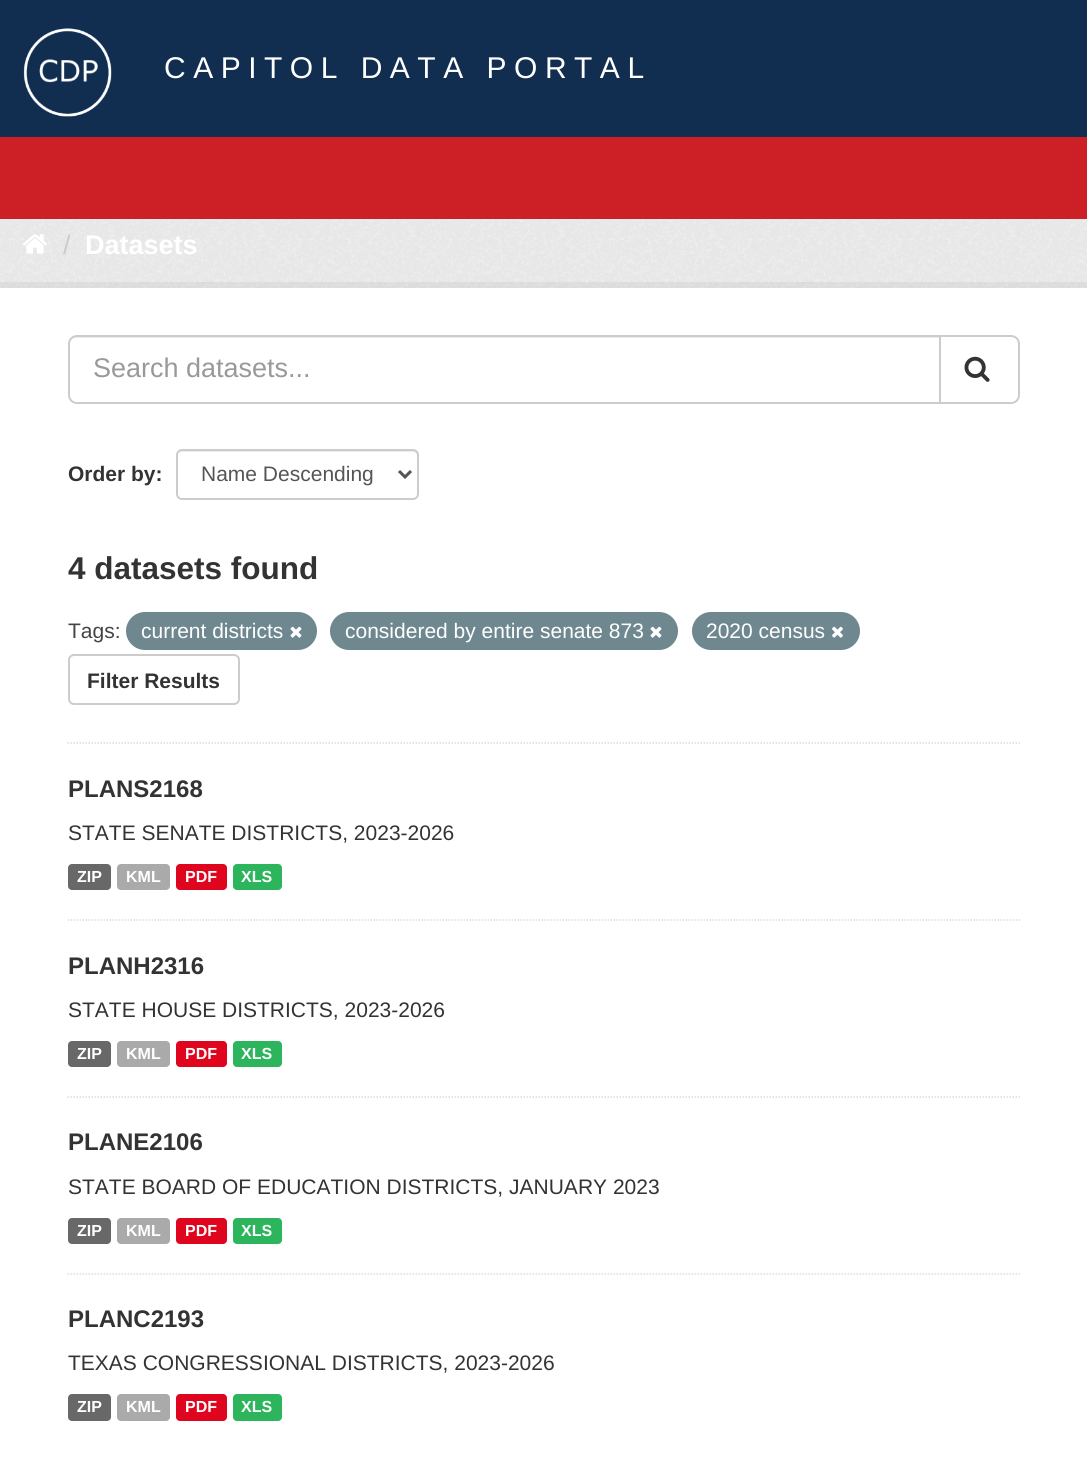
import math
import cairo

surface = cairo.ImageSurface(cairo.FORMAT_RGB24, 1087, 1464)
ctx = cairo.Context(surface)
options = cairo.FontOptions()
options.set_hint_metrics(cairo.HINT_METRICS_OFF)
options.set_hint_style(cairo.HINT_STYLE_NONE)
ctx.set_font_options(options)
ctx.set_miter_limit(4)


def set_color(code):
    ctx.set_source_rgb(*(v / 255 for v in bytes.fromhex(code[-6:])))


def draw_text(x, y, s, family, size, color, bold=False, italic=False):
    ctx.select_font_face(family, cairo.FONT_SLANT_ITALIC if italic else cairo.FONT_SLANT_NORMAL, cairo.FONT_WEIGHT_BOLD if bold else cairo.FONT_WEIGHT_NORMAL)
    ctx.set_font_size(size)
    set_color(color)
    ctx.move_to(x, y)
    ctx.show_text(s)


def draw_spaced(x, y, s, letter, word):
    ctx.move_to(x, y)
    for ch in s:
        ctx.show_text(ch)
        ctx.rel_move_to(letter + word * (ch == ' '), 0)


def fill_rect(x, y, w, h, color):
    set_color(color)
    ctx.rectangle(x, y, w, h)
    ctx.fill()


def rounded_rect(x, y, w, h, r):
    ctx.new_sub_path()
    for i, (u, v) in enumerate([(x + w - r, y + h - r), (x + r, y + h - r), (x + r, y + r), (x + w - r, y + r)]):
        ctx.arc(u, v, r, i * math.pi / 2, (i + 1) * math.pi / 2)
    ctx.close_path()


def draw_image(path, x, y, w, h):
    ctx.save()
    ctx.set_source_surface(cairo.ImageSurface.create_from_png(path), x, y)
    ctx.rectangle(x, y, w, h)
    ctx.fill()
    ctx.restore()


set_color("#eeeeee")
ctx.paint()
draw_image("assets/img1.png", 0, 219, 1087, 69)
fill_rect(0, 0, 1087, 137, "#112e51")
draw_image("assets/img2.png", 23, 28, 89, 89)
ctx.select_font_face("Liberation Sans")
ctx.set_font_size(30)
set_color("#ffffff")
draw_spaced(164, 78, "CAPITOL DATA PORTAL", 7.5, 0)
fill_rect(0, 137, 1087, 82, "#cd2026")
draw_image("assets/img3.png", 23, 234, 24, 20)
draw_text(63, 254, "/", "Liberation Sans", 27, "#cccccc")
draw_text(85, 254, "Datasets", "Liberation Sans", 27, "#ffffff", bold=True)
ctx.rectangle(-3, 285, 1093, 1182)
ctx.set_source_rgba(0, 0, 0, 0.05)
ctx.set_line_width(6)
ctx.stroke()
fill_rect(0, 288, 1087, 1176, "#ffffff")
ctx.new_path()
ctx.move_to(67.5, 743)
ctx.line_to(1020, 743)
set_color("#dddddd")
ctx.set_line_width(1.5)
ctx.set_dash([1.5, 1.5])
ctx.stroke()
set_color("#ececec")
ctx.new_path()
ctx.move_to(76, 338)
ctx.line_to(939, 338)
ctx.line_to(939, 336)
ctx.line_to(77, 336)
ctx.curve_to(72, 336, 69, 340, 69, 345)
ctx.curve_to(69, 341, 72, 338, 76, 338)
ctx.close_path()
ctx.fill()
ctx.new_path()
ctx.move_to(77, 336)
ctx.line_to(940, 336)
ctx.line_to(940, 403)
ctx.line_to(77, 403)
ctx.curve_to(72.5, 403, 69, 399.5, 69, 395)
ctx.line_to(69, 344)
ctx.curve_to(69, 339.5, 72.5, 336, 77, 336)
ctx.close_path()
set_color("#cccccc")
ctx.set_line_width(2)
ctx.set_dash([])
ctx.stroke()
draw_text(93, 377, "Search datasets...", "Liberation Sans", 27, "#999999")
set_color("#ffffff")
ctx.new_path()
ctx.move_to(940, 336)
ctx.line_to(1011, 336)
ctx.curve_to(1015.5, 336, 1019, 339.5, 1019, 344)
ctx.line_to(1019, 395)
ctx.curve_to(1019, 399.5, 1015.5, 403, 1011, 403)
ctx.line_to(940, 403)
ctx.close_path()
ctx.fill_preserve()
set_color("#cccccc")
ctx.stroke()
draw_image("assets/img4.png", 964, 356, 26, 26)
draw_text(68, 481, "Order by:", "Liberation Sans", 21, "#333333", bold=True)
set_color("#ececec")
ctx.new_path()
ctx.move_to(182, 452)
ctx.line_to(412, 452)
ctx.curve_to(415, 452, 417, 454, 417, 456)
ctx.line_to(417, 455)
ctx.curve_to(417, 452, 415, 450, 412, 450)
ctx.line_to(182, 450)
ctx.curve_to(179, 450, 177, 452, 177, 455)
ctx.line_to(177, 456)
ctx.curve_to(177, 454, 179, 452, 182, 452)
ctx.close_path()
ctx.fill()
rounded_rect(177, 450, 241, 49, 5)
set_color("#cccccc")
ctx.stroke()
ctx.new_path()
ctx.move_to(399, 471)
ctx.line_to(405, 477)
ctx.line_to(411, 471)
set_color("#555555")
ctx.set_line_width(3)
ctx.stroke()
draw_text(201, 481, "Name Descending", "Liberation Sans", 21, "#555555")
draw_text(68, 579, "4 datasets found", "Liberation Sans", 31.5, "#333333", bold=True)
draw_text(68, 638, "Tags:", "Liberation Sans", 21, "#444444")
set_color("#6f8890")
rounded_rect(126, 612, 191, 38, 19)
ctx.fill()
draw_text(141, 638, "current districts", "Liberation Sans", 21, "#ffffff")
draw_image("assets/img5.png", 290, 626, 12, 12)
set_color("#6f8890")
rounded_rect(330, 612, 348, 38, 19)
ctx.fill()
draw_text(345, 638, "considered by entire senate 873", "Liberation Sans", 21, "#ffffff")
draw_image("assets/img5.png", 650, 626, 12, 12)
set_color("#6f8890")
rounded_rect(692, 612, 168, 38, 19)
ctx.fill()
draw_text(706, 638, "2020 census", "Liberation Sans", 21, "#ffffff")
draw_image("assets/img6.png", 832, 626, 11, 12)
rounded_rect(69, 655, 170, 49, 5)
set_color("#cccccc")
ctx.set_line_width(2)
ctx.stroke()
draw_text(87, 688, "Filter Results", "Liberation Sans", 21, "#333333", bold=True)
ctx.new_path()
ctx.move_to(67.5, 920)
ctx.line_to(1020, 920)
set_color("#dddddd")
ctx.set_line_width(1.5)
ctx.set_dash([1.5, 1.5])
ctx.stroke()
draw_text(68, 797, "PLANS2168", "Liberation Sans", 24, "#333333", bold=True)
draw_text(68, 840, "STATE SENATE DISTRICTS, 2023-2026", "Liberation Sans", 21, "#333333")
set_color("#686868")
rounded_rect(68, 864, 43, 26, 4)
ctx.fill()
draw_text(77, 882, "ZIP", "Liberation Sans", 16, "#ffffff", bold=True)
set_color("#aaaaaa")
rounded_rect(117, 864, 53, 26, 4)
ctx.fill()
draw_text(126, 882, "KML", "Liberation Sans", 16, "#ffffff", bold=True)
set_color("#e0051e")
rounded_rect(176, 864, 51, 26, 4)
ctx.fill()
draw_text(185, 882, "PDF", "Liberation Sans", 16, "#ffffff", bold=True)
set_color("#2db55d")
rounded_rect(233, 864, 49, 26, 4)
ctx.fill()
draw_text(241, 882, "XLS", "Liberation Sans", 16, "#ffffff", bold=True)
ctx.new_path()
ctx.move_to(67.5, 1097)
ctx.line_to(1020, 1097)
set_color("#dddddd")
ctx.stroke()
draw_text(68, 974, "PLANH2316", "Liberation Sans", 24, "#333333", bold=True)
draw_text(68, 1017, "STATE HOUSE DISTRICTS, 2023-2026", "Liberation Sans", 21, "#333333")
set_color("#686868")
rounded_rect(68, 1041, 43, 26, 4)
ctx.fill()
draw_text(77, 1059, "ZIP", "Liberation Sans", 16, "#ffffff", bold=True)
set_color("#aaaaaa")
rounded_rect(117, 1041, 53, 26, 4)
ctx.fill()
draw_text(126, 1059, "KML", "Liberation Sans", 16, "#ffffff", bold=True)
set_color("#e0051e")
rounded_rect(176, 1041, 51, 26, 4)
ctx.fill()
draw_text(185, 1059, "PDF", "Liberation Sans", 16, "#ffffff", bold=True)
set_color("#2db55d")
rounded_rect(233, 1041, 49, 26, 4)
ctx.fill()
draw_text(241, 1059, "XLS", "Liberation Sans", 16, "#ffffff", bold=True)
ctx.new_path()
ctx.move_to(67.5, 1274)
ctx.line_to(1020, 1274)
set_color("#dddddd")
ctx.stroke()
draw_text(68, 1150, "PLANE2106", "Liberation Sans", 24, "#333333", bold=True)
draw_text(68, 1194, "STATE BOARD OF EDUCATION DISTRICTS, JANUARY 2023", "Liberation Sans", 21, "#333333")
set_color("#686868")
rounded_rect(68, 1218, 43, 26, 4)
ctx.fill()
draw_text(77, 1236, "ZIP", "Liberation Sans", 16, "#ffffff", bold=True)
set_color("#aaaaaa")
rounded_rect(117, 1218, 53, 26, 4)
ctx.fill()
draw_text(126, 1236, "KML", "Liberation Sans", 16, "#ffffff", bold=True)
set_color("#e0051e")
rounded_rect(176, 1218, 51, 26, 4)
ctx.fill()
draw_text(185, 1236, "PDF", "Liberation Sans", 16, "#ffffff", bold=True)
set_color("#2db55d")
rounded_rect(233, 1218, 49, 26, 4)
ctx.fill()
draw_text(241, 1236, "XLS", "Liberation Sans", 16, "#ffffff", bold=True)
draw_text(68, 1327, "PLANC2193", "Liberation Sans", 24, "#333333", bold=True)
draw_text(68, 1370, "TEXAS CONGRESSIONAL DISTRICTS, 2023-2026", "Liberation Sans", 21, "#333333")
set_color("#686868")
rounded_rect(68, 1394, 43, 27, 4)
ctx.fill()
draw_text(77, 1412, "ZIP", "Liberation Sans", 16, "#ffffff", bold=True)
set_color("#aaaaaa")
rounded_rect(117, 1394, 53, 27, 4)
ctx.fill()
draw_text(126, 1412, "KML", "Liberation Sans", 16, "#ffffff", bold=True)
set_color("#e0051e")
rounded_rect(176, 1394, 51, 27, 4)
ctx.fill()
draw_text(185, 1412, "PDF", "Liberation Sans", 16, "#ffffff", bold=True)
set_color("#2db55d")
rounded_rect(233, 1394, 49, 27, 4)
ctx.fill()
draw_text(241, 1412, "XLS", "Liberation Sans", 16, "#ffffff", bold=True)
surface.write_to_png("output.png")
